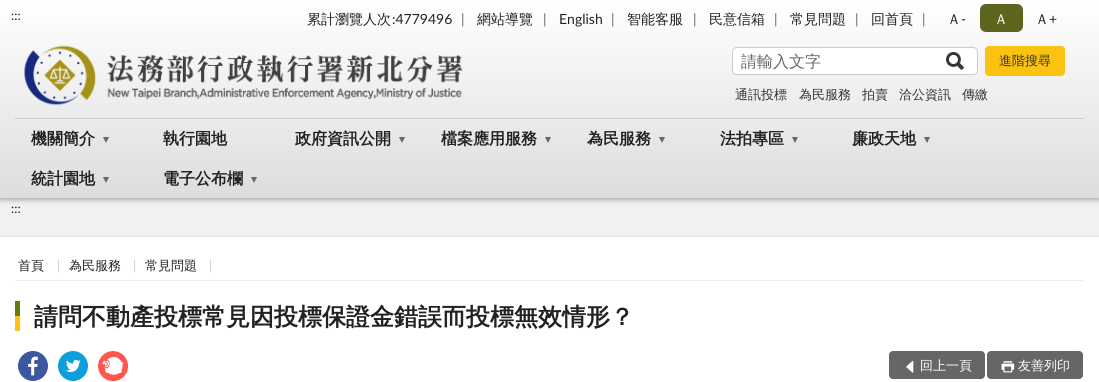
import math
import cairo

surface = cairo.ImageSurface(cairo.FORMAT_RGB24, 1099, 382)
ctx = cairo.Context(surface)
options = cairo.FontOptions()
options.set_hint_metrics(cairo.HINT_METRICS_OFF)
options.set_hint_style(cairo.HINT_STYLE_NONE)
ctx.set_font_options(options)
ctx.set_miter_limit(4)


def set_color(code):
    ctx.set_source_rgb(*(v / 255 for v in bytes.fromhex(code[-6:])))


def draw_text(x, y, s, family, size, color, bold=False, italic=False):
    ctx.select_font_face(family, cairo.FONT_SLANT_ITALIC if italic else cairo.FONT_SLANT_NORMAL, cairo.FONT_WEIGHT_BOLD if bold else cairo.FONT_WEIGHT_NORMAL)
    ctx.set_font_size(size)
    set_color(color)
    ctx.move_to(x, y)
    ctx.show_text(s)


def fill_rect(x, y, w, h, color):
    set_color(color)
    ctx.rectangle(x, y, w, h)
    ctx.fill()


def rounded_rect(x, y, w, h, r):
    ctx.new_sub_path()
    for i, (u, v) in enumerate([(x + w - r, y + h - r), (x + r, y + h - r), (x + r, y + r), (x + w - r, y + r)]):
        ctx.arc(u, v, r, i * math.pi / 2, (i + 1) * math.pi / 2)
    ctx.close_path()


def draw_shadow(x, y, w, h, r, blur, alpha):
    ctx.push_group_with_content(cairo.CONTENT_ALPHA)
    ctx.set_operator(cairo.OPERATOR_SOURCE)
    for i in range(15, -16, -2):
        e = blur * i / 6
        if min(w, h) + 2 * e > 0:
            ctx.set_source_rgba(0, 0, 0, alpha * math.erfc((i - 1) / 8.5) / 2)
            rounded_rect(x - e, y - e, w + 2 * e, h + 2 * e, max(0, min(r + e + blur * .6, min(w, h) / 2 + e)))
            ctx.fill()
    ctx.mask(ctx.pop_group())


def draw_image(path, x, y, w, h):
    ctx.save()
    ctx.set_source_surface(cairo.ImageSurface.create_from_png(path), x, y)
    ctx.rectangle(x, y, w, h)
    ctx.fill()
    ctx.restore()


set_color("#f1f1f1")
ctx.paint()
set_color("#000000")
draw_shadow(0, 2, 1099, 198, 0, 2.5, 0.3)
gradient = cairo.LinearGradient(550, 0, 550, 198)
gradient.add_color_stop_rgba(0, 1, 1, 1, 1)
gradient.add_color_stop_rgba(1, 0.867, 0.867, 0.867, 1)
ctx.set_source(gradient)
ctx.rectangle(0, 0, 1099, 198)
ctx.fill()
draw_text(11, 20, ":::", "Lato", 13, "#222222")
draw_text(307, 24, "累計瀏覽人次", "WenQuanYi Zen Hei Medium", 14, "#222222")
draw_text(392, 24, ":4779496", "Lato", 14, "#222222")
draw_text(461, 24, "|", "Lato", 14, "#666666")
draw_text(477, 24, "網站導覽", "WenQuanYi Zen Hei Medium", 14, "#222222")
draw_text(543, 24, "|", "Lato", 14, "#666666")
draw_text(559, 24, "English", "Lato", 14, "#222222")
draw_text(611, 24, "|", "Lato", 14, "#666666")
draw_text(627, 24, "智能客服", "WenQuanYi Zen Hei Medium", 14, "#222222")
draw_text(693, 24, "|", "Lato", 14, "#666666")
draw_text(709, 24, "民意信箱", "WenQuanYi Zen Hei Medium", 14, "#222222")
draw_text(774, 24, "|", "Lato", 14, "#666666")
draw_text(790, 24, "常見問題", "WenQuanYi Zen Hei Medium", 14, "#222222")
draw_text(855, 24, "|", "Lato", 14, "#666666")
draw_text(871, 24, "回首頁", "WenQuanYi Zen Hei Medium", 14, "#222222")
draw_text(922, 24, "|", "Lato", 14, "#666666")
draw_text(947, 24, "Ａ", "WenQuanYi Zen Hei Medium", 14, "#222222")
draw_text(961, 24, "-", "Lato", 14, "#222222")
set_color("#5d641e")
rounded_rect(980, 4, 43, 28, 6)
ctx.fill()
draw_text(994, 24, "Ａ", "WenQuanYi Zen Hei Medium", 14, "#ffffff")
draw_text(1035, 24, "Ａ", "WenQuanYi Zen Hei Medium", 14, "#222222")
draw_text(1049, 24, "+", "Lato", 14, "#222222")
draw_image("assets/img1.png", 24, 45, 439, 60)
set_color("#ffffff")
rounded_rect(732.5, 47.5, 245, 27, 4.5)
ctx.fill_preserve()
set_color("#cccccc")
ctx.set_line_width(1)
ctx.stroke()
ctx.save()
ctx.rectangle(741, 51, 201, 22)
ctx.clip()
draw_text(741, 67, "請輸入文字", "WenQuanYi Zen Hei Medium", 16, "#666666")
ctx.restore()
draw_image("assets/img2.png", 946, 52, 18, 18)
set_color("#fcc211")
rounded_rect(985.5, 46.5, 79, 29, 3.5)
ctx.fill_preserve()
ctx.stroke()
draw_text(999, 65, "進階搜尋", "WenQuanYi Zen Hei Medium", 13, "#333333")
draw_text(735, 99, "通訊投標", "WenQuanYi Zen Hei Medium", 13, "#333333")
draw_text(799, 99, "為民服務", "WenQuanYi Zen Hei Medium", 13, "#333333")
draw_text(862, 99, "拍賣", "WenQuanYi Zen Hei Medium", 13, "#333333")
draw_text(899, 99, "洽公資訊", "WenQuanYi Zen Hei Medium", 13, "#333333")
draw_text(962, 99, "傳繳", "WenQuanYi Zen Hei Medium", 13, "#333333")
fill_rect(15, 118, 1069, 1, "#cccccc")
draw_text(31, 144, "機關簡介", "WenQuanYi Zen Hei", 16, "#222222", bold=True)
set_color("#666666")
ctx.new_path()
ctx.move_to(103, 137)
ctx.line_to(109, 137)
ctx.line_to(106, 143)
ctx.close_path()
ctx.fill()
draw_text(163, 144, "執行園地", "WenQuanYi Zen Hei", 16, "#222222", bold=True)
draw_text(295, 144, "政府資訊公開", "WenQuanYi Zen Hei", 16, "#222222", bold=True)
set_color("#666666")
ctx.new_path()
ctx.move_to(399, 137)
ctx.line_to(405, 137)
ctx.line_to(402, 143)
ctx.close_path()
ctx.fill()
draw_text(441, 144, "檔案應用服務", "WenQuanYi Zen Hei", 16, "#222222", bold=True)
set_color("#666666")
ctx.new_path()
ctx.move_to(545, 137)
ctx.line_to(551, 137)
ctx.line_to(548, 143)
ctx.close_path()
ctx.fill()
draw_text(587, 144, "為民服務", "WenQuanYi Zen Hei", 16, "#222222", bold=True)
set_color("#666666")
ctx.new_path()
ctx.move_to(659, 137)
ctx.line_to(665, 137)
ctx.line_to(662, 143)
ctx.close_path()
ctx.fill()
draw_text(720, 144, "法拍專區", "WenQuanYi Zen Hei", 16, "#222222", bold=True)
set_color("#666666")
ctx.new_path()
ctx.move_to(792, 137)
ctx.line_to(798, 137)
ctx.line_to(795, 143)
ctx.close_path()
ctx.fill()
draw_text(852, 144, "廉政天地", "WenQuanYi Zen Hei", 16, "#222222", bold=True)
set_color("#666666")
ctx.new_path()
ctx.move_to(924, 137)
ctx.line_to(930, 137)
ctx.line_to(927, 143)
ctx.close_path()
ctx.fill()
draw_text(31, 184, "統計園地", "WenQuanYi Zen Hei", 16, "#222222", bold=True)
set_color("#666666")
ctx.new_path()
ctx.move_to(103, 177)
ctx.line_to(109, 177)
ctx.line_to(106, 183)
ctx.close_path()
ctx.fill()
draw_text(163, 184, "電子公布欄", "WenQuanYi Zen Hei", 16, "#222222", bold=True)
set_color("#666666")
ctx.new_path()
ctx.move_to(251, 177)
ctx.line_to(257, 177)
ctx.line_to(254, 183)
ctx.close_path()
ctx.fill()
draw_text(11, 213, ":::", "Lato", 13, "#222222")
set_color("#000000")
draw_shadow(1, 238, 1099, 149, 0, 1.5, 0.4)
fill_rect(0, 237, 1099, 145, "#ffffff")
fill_rect(15, 280, 1069, 1, "#eeeeee")
draw_text(18, 270, "首頁", "WenQuanYi Zen Hei Medium", 13, "#222222")
draw_text(57, 270, "|", "Lato", 13, "#cccccc")
draw_text(69, 270, "為民服務", "WenQuanYi Zen Hei Medium", 13, "#222222")
draw_text(133, 270, "|", "Lato", 13, "#cccccc")
draw_text(145, 270, "常見問題", "WenQuanYi Zen Hei Medium", 13, "#222222")
draw_text(209, 270, "|", "Lato", 13, "#cccccc")
fill_rect(15, 301, 5, 15, "#637e07")
draw_text(34, 325, "請問不動產投標常見因投標保證金錯誤而投標無效情形？", "WenQuanYi Zen Hei", 24, "#222222", bold=True)
fill_rect(15, 316, 5, 15, "#fcc211")
draw_image("assets/img3.png", 18, 351, 30, 30)
draw_image("assets/img4.png", 58, 351, 30, 30)
draw_image("assets/img5.png", 98, 351, 30, 30)
set_color("#666666")
rounded_rect(889, 351, 96, 28, 4)
ctx.fill()
draw_image("assets/img6.png", 906, 361, 8, 12)
draw_text(920, 370, "回上一頁", "WenQuanYi Zen Hei Medium", 13, "#ffffff")
set_color("#666666")
rounded_rect(987, 351, 96, 28, 4)
ctx.fill()
draw_image("assets/img7.png", 1001, 361, 14, 12)
draw_text(1018, 370, "友善列印", "WenQuanYi Zen Hei Medium", 13, "#ffffff")
surface.write_to_png("output.png")
